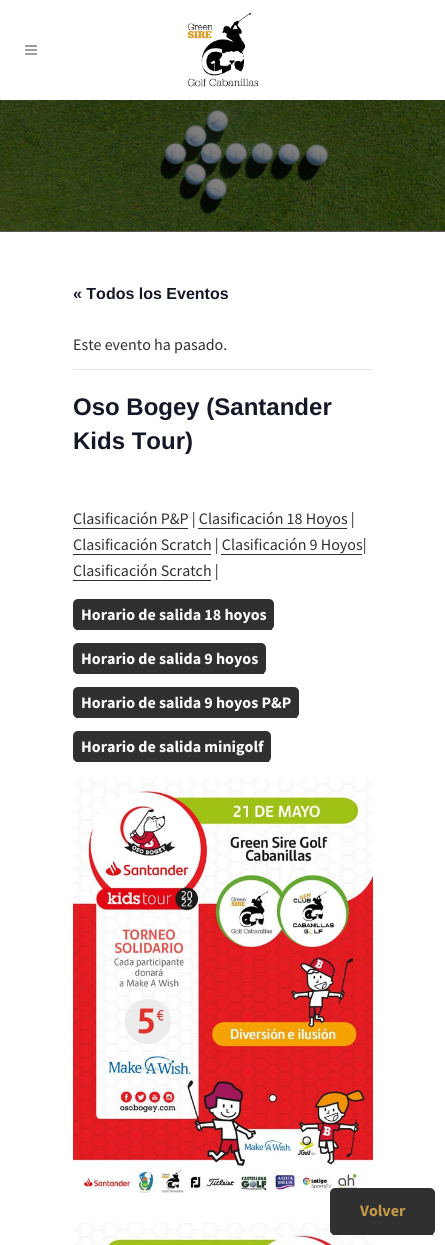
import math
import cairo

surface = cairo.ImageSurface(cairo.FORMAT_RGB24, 445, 1245)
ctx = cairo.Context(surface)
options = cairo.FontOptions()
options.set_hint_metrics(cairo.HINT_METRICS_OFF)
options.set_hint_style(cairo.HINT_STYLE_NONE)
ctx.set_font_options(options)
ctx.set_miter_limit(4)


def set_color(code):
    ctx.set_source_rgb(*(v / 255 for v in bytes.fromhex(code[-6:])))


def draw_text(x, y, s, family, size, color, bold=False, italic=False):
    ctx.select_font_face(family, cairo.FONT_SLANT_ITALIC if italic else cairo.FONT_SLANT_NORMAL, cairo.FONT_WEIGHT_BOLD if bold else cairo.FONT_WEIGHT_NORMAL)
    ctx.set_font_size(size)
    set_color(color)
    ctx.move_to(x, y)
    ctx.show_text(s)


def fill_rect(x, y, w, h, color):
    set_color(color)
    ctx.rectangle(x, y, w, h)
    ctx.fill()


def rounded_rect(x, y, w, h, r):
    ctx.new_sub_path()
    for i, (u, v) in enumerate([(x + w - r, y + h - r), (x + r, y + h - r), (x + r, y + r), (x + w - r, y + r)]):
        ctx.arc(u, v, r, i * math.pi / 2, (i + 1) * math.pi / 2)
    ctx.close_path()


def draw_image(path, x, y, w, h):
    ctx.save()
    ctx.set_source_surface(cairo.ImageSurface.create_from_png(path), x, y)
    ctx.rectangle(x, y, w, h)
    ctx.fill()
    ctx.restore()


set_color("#ffffff")
ctx.paint()
draw_image("assets/img1.png", 25, 45, 12, 10)
draw_image("assets/img2.png", 188, 12, 71, 75)
fill_rect(0, 231, 445, 1, "#595959")
draw_image("assets/img3.png", 0, 100, 445, 131)
draw_text(73, 299, "« Todos los Eventos", "Liberation Sans", 16, "#141827", bold=True)
fill_rect(73, 369, 300, 1, "#e4e4e4")
draw_text(73, 350, "Este evento ha pasado.", "Source Sans Pro", 16, "#303030")
draw_text(73, 415, "Oso Bogey (Santander", "Liberation Sans", 24, "#141827", bold=True)
draw_text(73, 449, "Kids Tour)", "Liberation Sans", 24, "#141827", bold=True)
draw_text(73, 524, "Clasificación P&P | Clasificación 18 Hoyos |", "Source Sans Pro", 16, "#303030")
fill_rect(73, 528, 115, 1, "#303030")
fill_rect(198, 528, 149, 1, "#303030")
draw_text(73, 550, "Clasificación Scratch | Clasificación 9 Hoyos|", "Source Sans Pro", 16, "#303030")
fill_rect(73, 554, 138, 1, "#303030")
fill_rect(221, 554, 141, 1, "#303030")
draw_text(73, 576, "Clasificación Scratch |", "Source Sans Pro", 16, "#303030")
fill_rect(73, 580, 138, 1, "#303030")
rounded_rect(73, 599, 201, 31, 5)
ctx.fill()
draw_text(81, 620, "Horario de salida 18 hoyos", "Source Sans Pro", 16, "#fcfcfc", bold=True)
fill_rect(76, 629, 196, 1, "#303030")
rounded_rect(73, 643, 193, 31, 5)
ctx.fill()
draw_text(81, 664, "Horario de salida 9 hoyos", "Source Sans Pro", 16, "#fcfcfc", bold=True)
fill_rect(76, 673, 188, 1, "#303030")
rounded_rect(73, 687, 226, 31, 5)
ctx.fill()
draw_text(81, 708, "Horario de salida 9 hoyos P&P", "Source Sans Pro", 16, "#fcfcfc", bold=True)
fill_rect(76, 717, 221, 1, "#303030")
rounded_rect(73, 731, 198, 31, 5)
ctx.fill()
draw_text(81, 752, "Horario de salida minigolf", "Source Sans Pro", 16, "#fcfcfc", bold=True)
fill_rect(76, 761, 193, 1, "#303030")
draw_image("assets/img4.png", 73, 778, 300, 417)
draw_image("assets/img5.png", 73, 1222, 300, 23)
rounded_rect(330, 1188, 105, 47, 5)
ctx.fill()
fill_rect(333, 1234, 100, 1, "#303030")
draw_text(360, 1216, "Volver", "Source Sans Pro", 16, "#c29946", bold=True)
surface.write_to_png("output.png")
